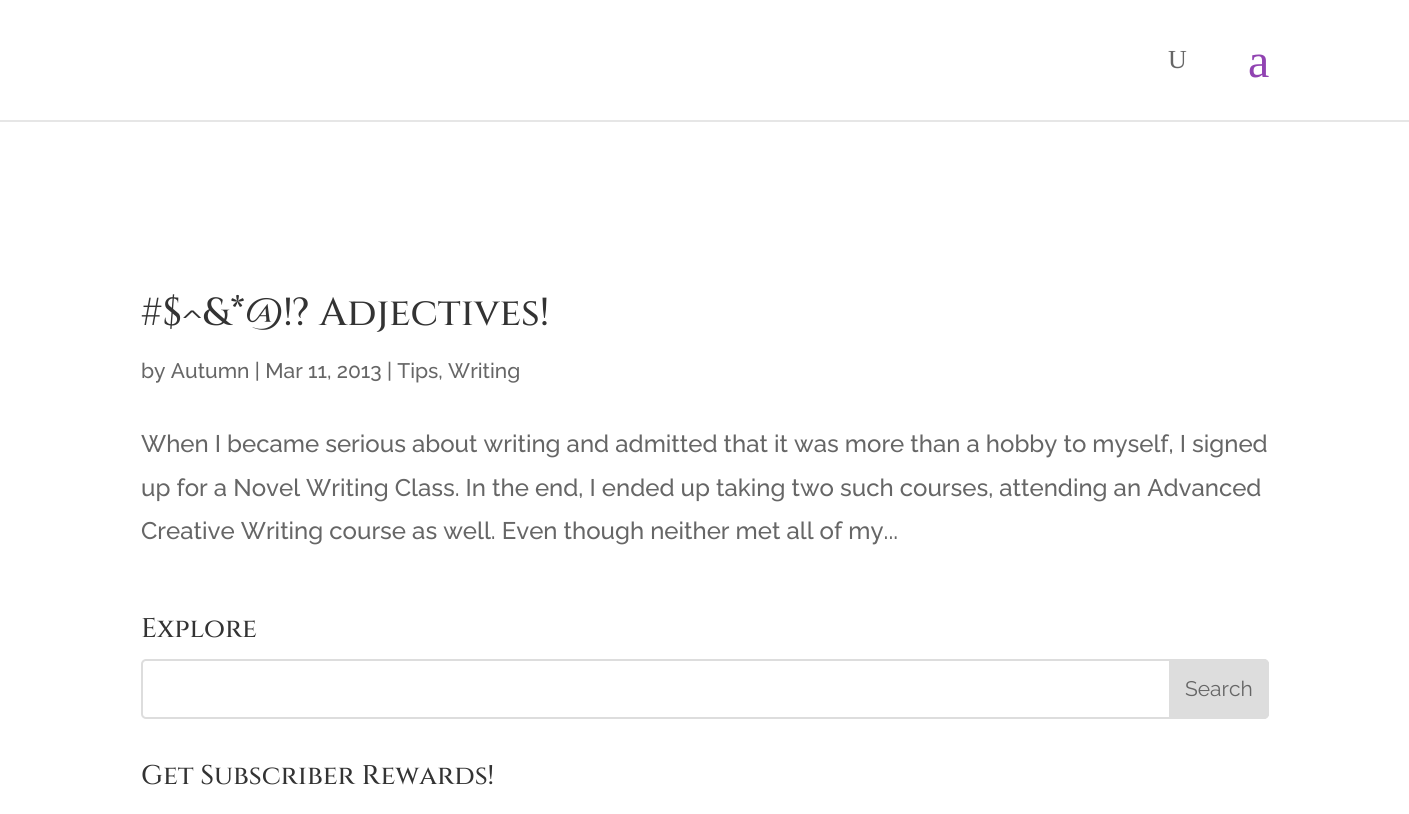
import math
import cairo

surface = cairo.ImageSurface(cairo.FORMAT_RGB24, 1409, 814)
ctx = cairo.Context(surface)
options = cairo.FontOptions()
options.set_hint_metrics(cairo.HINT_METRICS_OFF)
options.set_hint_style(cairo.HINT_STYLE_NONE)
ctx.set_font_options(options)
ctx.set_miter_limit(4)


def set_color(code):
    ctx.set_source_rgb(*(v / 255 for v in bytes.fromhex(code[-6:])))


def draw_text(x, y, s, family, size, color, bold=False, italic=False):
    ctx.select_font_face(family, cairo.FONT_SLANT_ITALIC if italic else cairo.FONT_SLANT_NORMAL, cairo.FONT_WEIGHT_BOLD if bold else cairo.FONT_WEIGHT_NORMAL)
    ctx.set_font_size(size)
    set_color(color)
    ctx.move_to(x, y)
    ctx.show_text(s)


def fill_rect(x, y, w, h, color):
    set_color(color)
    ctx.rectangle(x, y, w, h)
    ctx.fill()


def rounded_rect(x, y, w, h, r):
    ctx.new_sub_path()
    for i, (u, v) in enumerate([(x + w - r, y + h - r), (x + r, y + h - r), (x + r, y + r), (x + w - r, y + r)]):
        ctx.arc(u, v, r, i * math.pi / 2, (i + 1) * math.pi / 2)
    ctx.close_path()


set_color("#ffffff")
ctx.paint()
fill_rect(0, 120, 1409, 2, "#e6e6e6")
draw_text(1168, 68, "U", "Liberation Serif", 26, "#666666")
draw_text(1248, 77, "a", "Liberation Serif", 48, "#9143b2")
draw_text(141, 325, "#$^&*@!? Adjectives!", "Cinzel Medium", 39, "#333333")
draw_text(141, 378, "by Autumn | Mar 11, 2013 | Tips, Writing", "Raleway Medium", 21, "#666666")
draw_text(141, 452, "When I became serious about writing and admitted that it was more than a hobby to myself, I signed", "Raleway Medium", 24, "#666666")
draw_text(141, 496, "up for a Novel Writing Class. In the end, I ended up taking two such courses, attending an Advanced", "Raleway Medium", 24, "#666666")
draw_text(141, 539, "Creative Writing course as well. Even though neither met all of my...", "Raleway Medium", 24, "#666666")
draw_text(141, 637, "Explore", "Cinzel Medium", 27, "#333333")
rounded_rect(142, 660, 1126, 58, 4)
set_color("#dddddd")
ctx.stroke()
ctx.new_path()
ctx.move_to(1170, 660)
ctx.line_to(1264, 660)
ctx.curve_to(1266, 660, 1268, 662, 1268, 664)
ctx.line_to(1268, 714)
ctx.curve_to(1268, 716, 1266, 718, 1264, 718)
ctx.line_to(1170, 718)
ctx.close_path()
ctx.fill_preserve()
ctx.stroke()
draw_text(1185, 696, "Search", "Raleway", 21, "#666666")
draw_text(141, 784, "Get Subscriber Rewards!", "Cinzel Medium", 27, "#333333")
surface.write_to_png("output.png")
